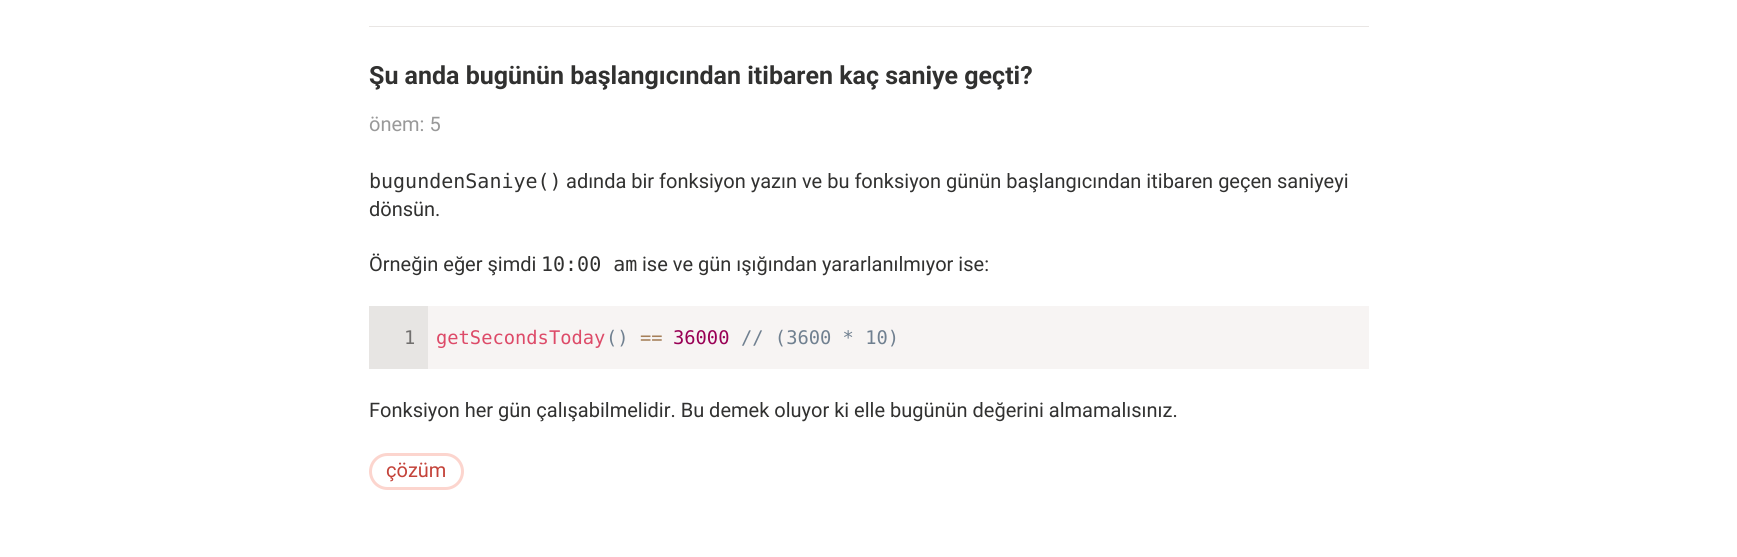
import math
import cairo

surface = cairo.ImageSurface(cairo.FORMAT_RGB24, 1737, 557)
ctx = cairo.Context(surface)
options = cairo.FontOptions()
options.set_hint_metrics(cairo.HINT_METRICS_OFF)
options.set_hint_style(cairo.HINT_STYLE_NONE)
ctx.set_font_options(options)
ctx.set_miter_limit(4)


def set_color(code):
    ctx.set_source_rgb(*(v / 255 for v in bytes.fromhex(code[-6:])))


def draw_text(x, y, s, family, size, color, bold=False, italic=False):
    ctx.select_font_face(family, cairo.FONT_SLANT_ITALIC if italic else cairo.FONT_SLANT_NORMAL, cairo.FONT_WEIGHT_BOLD if bold else cairo.FONT_WEIGHT_NORMAL)
    ctx.set_font_size(size)
    set_color(color)
    ctx.move_to(x, y)
    ctx.show_text(s)


def draw_spaced(x, y, s, letter, word):
    ctx.move_to(x, y)
    for ch in s:
        ctx.show_text(ch)
        ctx.rel_move_to(letter + word * (ch == ' '), 0)


def fill_rect(x, y, w, h, color):
    set_color(color)
    ctx.rectangle(x, y, w, h)
    ctx.fill()


def rounded_rect(x, y, w, h, r):
    ctx.new_sub_path()
    for i, (u, v) in enumerate([(x + w - r, y + h - r), (x + r, y + h - r), (x + r, y + r), (x + w - r, y + r)]):
        ctx.arc(u, v, r, i * math.pi / 2, (i + 1) * math.pi / 2)
    ctx.close_path()


set_color("#ffffff")
ctx.paint()
fill_rect(369, 26, 1000, 1, "#e9e6e4")
draw_text(369, 84, "Şu anda bugünün başlangıcından itibaren kaç saniye geçti?", "Roboto", 25, "#313130", bold=True)
draw_text(369, 131, "önem: 5", "Roboto", 20, "#999999")
draw_text(369, 188, "bugundenSaniye()", "DejaVu Sans Mono", 20, "#313130")
draw_text(566, 188, "adında bir fonksiyon yazın ve bu fonksiyon günün başlangıcından itibaren geçen saniyeyi", "Roboto", 20, "#313130")
draw_text(369, 216, "dönsün.", "Roboto", 20, "#313130")
draw_text(369, 271, "Örneğin eğer şimdi", "Roboto", 20, "#313130")
draw_text(541, 271, "10:00 am", "DejaVu Sans Mono", 20, "#313130")
draw_text(642, 271, "ise ve gün ışığından yararlanılmıyor ise:", "Roboto", 20, "#313130")
fill_rect(428, 306, 941, 63, "#f7f4f3")
fill_rect(369, 306, 59, 63, "#e7e5e3")
ctx.select_font_face("DejaVu Sans Mono")
ctx.set_font_size(18.75)
set_color("#716f6e")
draw_spaced(404, 344, "1", -1, 0)
draw_text(436, 344, "getSecondsToday", "DejaVu Sans Mono", 18.75, "#dd4a68")
draw_text(606, 344, "()", "DejaVu Sans Mono", 18.75, "#708090")
draw_text(640, 344, "==", "DejaVu Sans Mono", 18.75, "#a67f59")
draw_text(673, 344, "36000", "DejaVu Sans Mono", 18.75, "#990055")
draw_text(741, 344, "// (3600 * 10)", "DejaVu Sans Mono", 18.75, "#708090")
draw_text(369, 417, "Fonksiyon her gün çalışabilmelidir. Bu demek oluyor ki elle bugünün değerini almamalısınız.", "Roboto", 20, "#313130")
rounded_rect(370.5, 454.5, 92, 34, 17)
set_color("#fcd5ce")
ctx.set_line_width(3)
ctx.stroke()
draw_text(386, 477, "çözüm", "Roboto", 20, "#c4433a")
surface.write_to_png("output.png")
